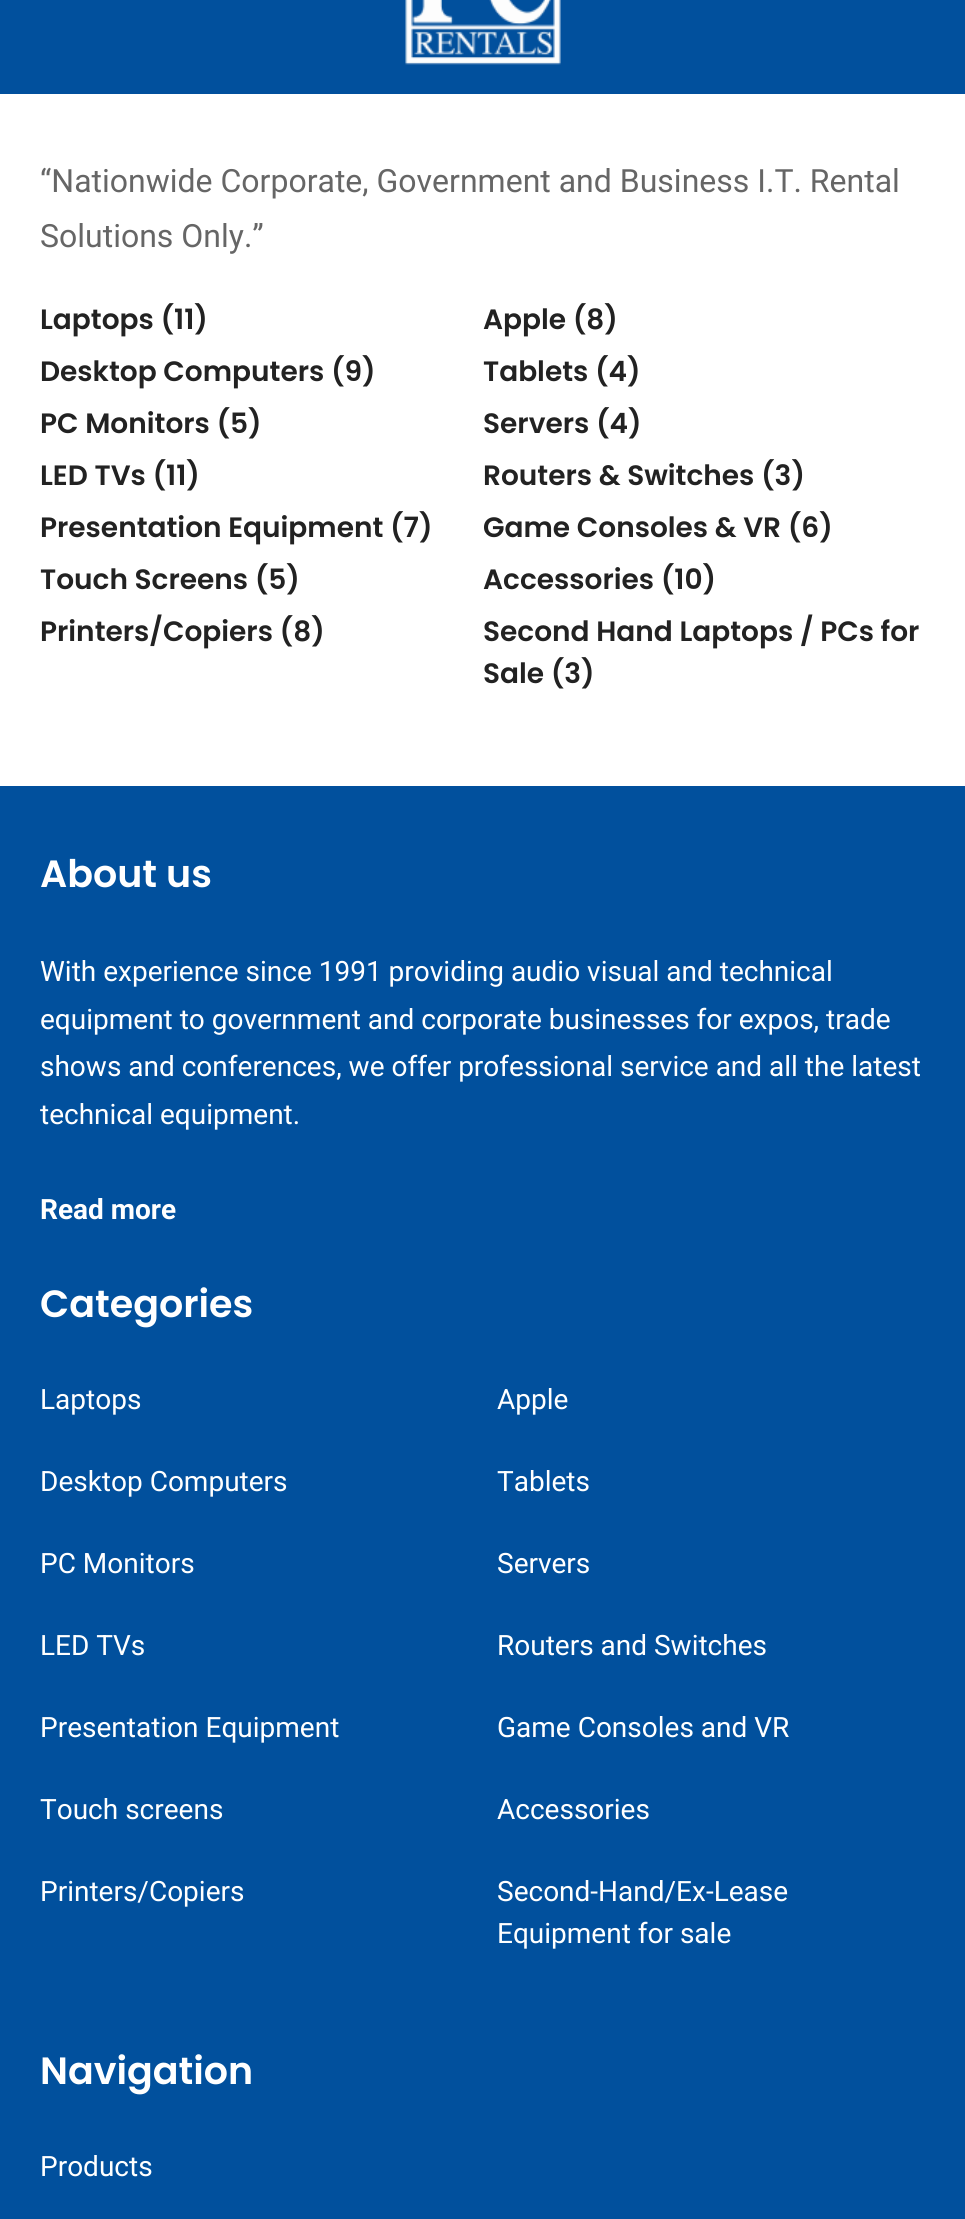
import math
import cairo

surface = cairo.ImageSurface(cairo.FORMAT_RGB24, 965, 2219)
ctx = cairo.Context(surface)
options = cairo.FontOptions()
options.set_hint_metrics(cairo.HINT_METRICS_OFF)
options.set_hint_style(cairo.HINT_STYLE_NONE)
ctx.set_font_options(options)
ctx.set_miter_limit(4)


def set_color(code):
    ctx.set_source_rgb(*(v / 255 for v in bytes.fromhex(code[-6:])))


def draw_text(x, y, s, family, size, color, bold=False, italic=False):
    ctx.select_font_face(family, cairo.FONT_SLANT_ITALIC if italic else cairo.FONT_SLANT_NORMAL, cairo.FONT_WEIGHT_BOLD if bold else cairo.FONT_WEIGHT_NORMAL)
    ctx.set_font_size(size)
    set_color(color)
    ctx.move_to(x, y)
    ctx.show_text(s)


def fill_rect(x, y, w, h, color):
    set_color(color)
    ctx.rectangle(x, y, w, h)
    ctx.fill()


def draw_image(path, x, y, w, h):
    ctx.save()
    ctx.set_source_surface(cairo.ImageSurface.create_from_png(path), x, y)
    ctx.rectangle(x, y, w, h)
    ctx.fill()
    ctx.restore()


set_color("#ffffff")
ctx.paint()
fill_rect(0, 0, 965, 94, "#01509d")
draw_image("assets/img1.png", 405, 0, 156, 65)
draw_text(40, 192, "“Nationwide Corporate, Government and Business I.T. Rental", "Roboto", 32, "#666666")
draw_text(40, 247, "Solutions Only.”", "Roboto", 32, "#666666")
draw_text(40, 329, "Laptops (11)", "Poppins SemiBold", 28, "#222222")
draw_text(40, 381, "Desktop Computers (9)", "Poppins SemiBold", 28, "#222222")
draw_text(40, 433, "PC Monitors (5)", "Poppins SemiBold", 28, "#222222")
draw_text(40, 485, "LED TVs (11)", "Poppins SemiBold", 28, "#222222")
draw_text(40, 537, "Presentation Equipment (7)", "Poppins SemiBold", 28, "#222222")
draw_text(40, 589, "Touch Screens (5)", "Poppins SemiBold", 28, "#222222")
draw_text(40, 641, "Printers/Copiers (8)", "Poppins SemiBold", 28, "#222222")
draw_text(483, 329, "Apple (8)", "Poppins SemiBold", 28, "#222222")
draw_text(483, 381, "Tablets (4)", "Poppins SemiBold", 28, "#222222")
draw_text(483, 433, "Servers (4)", "Poppins SemiBold", 28, "#222222")
draw_text(483, 485, "Routers & Switches (3)", "Poppins SemiBold", 28, "#222222")
draw_text(483, 537, "Game Consoles & VR (6)", "Poppins SemiBold", 28, "#222222")
draw_text(483, 589, "Accessories (10)", "Poppins SemiBold", 28, "#222222")
draw_text(483, 641, "Second Hand Laptops / PCs for", "Poppins SemiBold", 28, "#222222")
draw_text(483, 683, "Sale (3)", "Poppins SemiBold", 28, "#222222")
fill_rect(0, 786, 965, 1433, "#01509d")
draw_text(40, 887, "About us", "Poppins SemiBold", 38, "#ffffff")
draw_text(40, 981, "With experience since 1991 providing audio visual and technical", "Roboto", 28, "#ffffff")
draw_text(40, 1029, "equipment to government and corporate businesses for expos, trade", "Roboto", 28, "#ffffff")
draw_text(40, 1076, "shows and conferences, we offer professional service and all the latest", "Roboto", 28, "#ffffff")
draw_text(40, 1124, "technical equipment.", "Roboto", 28, "#ffffff")
draw_text(40, 1219, "Read more", "Roboto", 28, "#ffffff", bold=True)
draw_text(40, 1317, "Categories", "Poppins SemiBold", 38, "#ffffff")
draw_text(40, 1409, "Laptops", "Roboto", 28, "#ffffff")
draw_text(497, 1409, "Apple", "Roboto", 28, "#ffffff")
draw_text(40, 1491, "Desktop Computers", "Roboto", 28, "#ffffff")
draw_text(497, 1491, "Tablets", "Roboto", 28, "#ffffff")
draw_text(40, 1573, "PC Monitors", "Roboto", 28, "#ffffff")
draw_text(497, 1573, "Servers", "Roboto", 28, "#ffffff")
draw_text(40, 1655, "LED TVs", "Roboto", 28, "#ffffff")
draw_text(497, 1655, "Routers and Switches", "Roboto", 28, "#ffffff")
draw_text(40, 1737, "Presentation Equipment", "Roboto", 28, "#ffffff")
draw_text(497, 1737, "Game Consoles and VR", "Roboto", 28, "#ffffff")
draw_text(40, 1819, "Touch screens", "Roboto", 28, "#ffffff")
draw_text(497, 1819, "Accessories", "Roboto", 28, "#ffffff")
draw_text(40, 1901, "Printers/Copiers", "Roboto", 28, "#ffffff")
draw_text(497, 1901, "Second-Hand/Ex-Lease", "Roboto", 28, "#ffffff")
draw_text(497, 1943, "Equipment for sale", "Roboto", 28, "#ffffff")
draw_text(40, 2084, "Navigation", "Poppins SemiBold", 38, "#ffffff")
draw_text(40, 2176, "Products", "Roboto", 28, "#ffffff")
surface.write_to_png("output.png")
